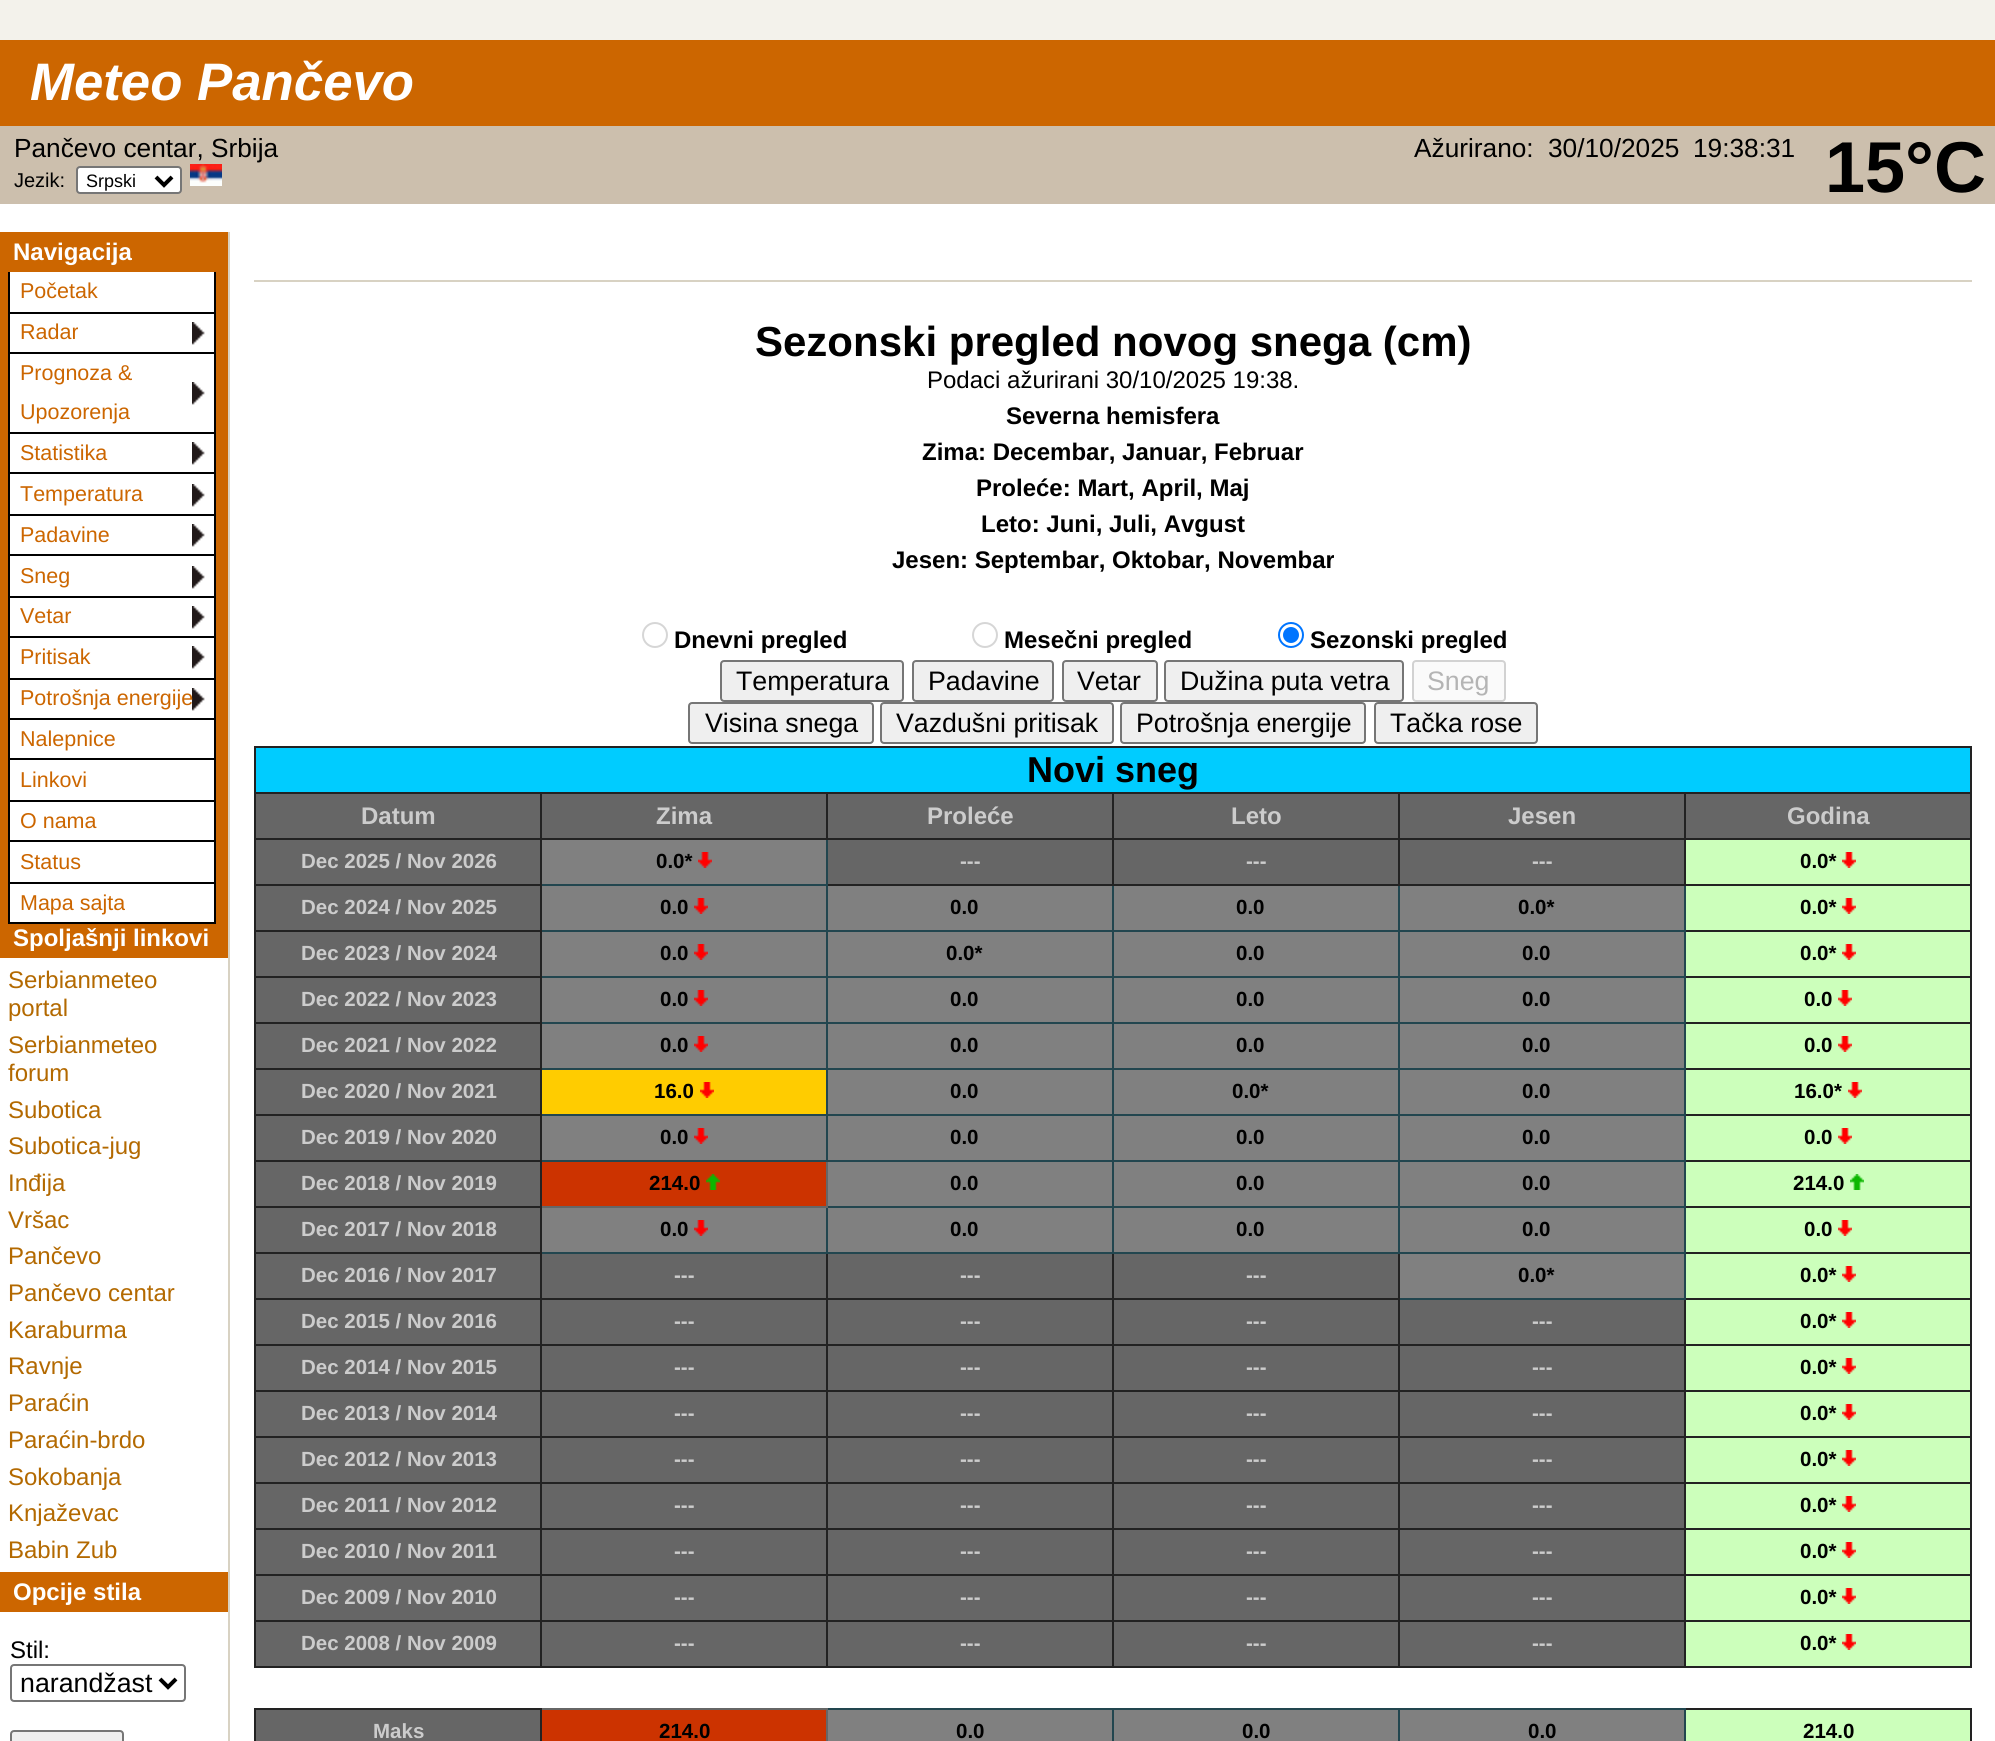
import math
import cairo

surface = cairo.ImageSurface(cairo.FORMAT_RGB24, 1995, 1741)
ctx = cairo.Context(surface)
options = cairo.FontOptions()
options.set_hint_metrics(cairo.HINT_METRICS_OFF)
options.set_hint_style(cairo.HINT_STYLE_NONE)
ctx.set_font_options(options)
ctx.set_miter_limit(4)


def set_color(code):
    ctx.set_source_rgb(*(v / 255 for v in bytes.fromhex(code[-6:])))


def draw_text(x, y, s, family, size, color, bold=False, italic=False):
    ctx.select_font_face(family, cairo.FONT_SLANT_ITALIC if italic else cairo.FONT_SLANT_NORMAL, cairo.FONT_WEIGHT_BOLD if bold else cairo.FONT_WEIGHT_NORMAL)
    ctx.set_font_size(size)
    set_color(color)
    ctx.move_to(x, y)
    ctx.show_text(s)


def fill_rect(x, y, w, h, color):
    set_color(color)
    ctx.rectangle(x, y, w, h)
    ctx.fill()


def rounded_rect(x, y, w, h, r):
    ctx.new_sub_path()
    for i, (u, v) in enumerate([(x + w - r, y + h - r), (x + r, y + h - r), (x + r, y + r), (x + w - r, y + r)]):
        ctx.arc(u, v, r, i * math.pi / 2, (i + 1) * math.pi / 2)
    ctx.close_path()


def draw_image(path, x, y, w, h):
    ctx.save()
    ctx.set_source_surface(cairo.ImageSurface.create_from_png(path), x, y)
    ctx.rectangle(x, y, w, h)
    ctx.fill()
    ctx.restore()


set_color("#f3f2eb")
ctx.paint()
fill_rect(0, 204, 1995, 1537, "#ffffff")
fill_rect(0, 40, 1995, 86, "#cc6600")
draw_text(30, 100, "Meteo Pančevo", "Liberation Sans", 52.75, "#ffffff", bold=True, italic=True)
fill_rect(0, 126, 1995, 78, "#ccbfad")
draw_text(14, 157, "Pančevo centar, Srbija", "Liberation Sans", 26.25, "#000000")
draw_text(14, 187, "Jezik:", "Liberation Sans", 20, "#000000")
set_color("#ffffff")
rounded_rect(77, 167, 104, 26, 3)
ctx.fill_preserve()
set_color("#767676")
ctx.stroke()
ctx.new_path()
ctx.move_to(156, 177)
ctx.line_to(164, 185)
ctx.line_to(172, 177)
set_color("#000000")
ctx.set_line_width(4)
ctx.stroke()
draw_text(86, 187, "Srpski", "Liberation Sans", 18, "#000000")
draw_image("assets/img1.png", 190, 164, 32, 22)
draw_text(1414, 157, "Ažurirano:", "Liberation Sans", 26.25, "#000000")
draw_text(1548, 157, "30/10/2025", "Liberation Sans", 26.25, "#000000")
draw_text(1693, 157, "19:38:31", "Liberation Sans", 26.25, "#000000")
draw_text(1825, 192, "15°C", "Liberation Sans", 72, "#000000", bold=True)
fill_rect(0, 232, 228, 726, "#cc6600")
draw_text(13, 260, "Navigacija", "Liberation Sans", 24, "#ffffff", bold=True)
fill_rect(10, 272, 204, 40, "#ffffff")
fill_rect(214, 272, 2, 652, "#000000")
fill_rect(8, 312, 208, 2, "#000000")
fill_rect(8, 272, 2, 42, "#000000")
draw_text(20, 298, "Početak", "Liberation Sans", 21.5, "#cc6600")
fill_rect(10, 314, 204, 38, "#ffffff")
draw_image("assets/img2.png", 192, 322, 13, 23)
fill_rect(8, 352, 208, 2, "#000000")
fill_rect(8, 314, 2, 40, "#000000")
draw_text(20, 339, "Radar", "Liberation Sans", 21.5, "#cc6600")
fill_rect(10, 354, 204, 78, "#ffffff")
draw_image("assets/img2.png", 192, 382, 13, 23)
fill_rect(8, 432, 208, 2, "#000000")
fill_rect(8, 354, 2, 80, "#000000")
draw_text(20, 380, "Prognoza &", "Liberation Sans", 21.5, "#cc6600")
draw_text(20, 419, "Upozorenja", "Liberation Sans", 21.5, "#cc6600")
fill_rect(10, 434, 204, 38, "#ffffff")
draw_image("assets/img2.png", 192, 442, 13, 23)
fill_rect(8, 472, 208, 2, "#000000")
fill_rect(8, 434, 2, 40, "#000000")
draw_text(20, 460, "Statistika", "Liberation Sans", 21.5, "#cc6600")
fill_rect(10, 474, 204, 40, "#ffffff")
draw_image("assets/img2.png", 192, 484, 13, 23)
fill_rect(8, 514, 208, 2, "#000000")
fill_rect(8, 474, 2, 42, "#000000")
draw_text(20, 501, "Temperatura", "Liberation Sans", 21.5, "#cc6600")
fill_rect(10, 516, 204, 38, "#ffffff")
draw_image("assets/img2.png", 192, 524, 13, 23)
fill_rect(8, 554, 208, 2, "#000000")
fill_rect(8, 516, 2, 40, "#000000")
draw_text(20, 542, "Padavine", "Liberation Sans", 21.5, "#cc6600")
fill_rect(10, 556, 204, 40, "#ffffff")
draw_image("assets/img2.png", 192, 566, 13, 23)
fill_rect(8, 596, 208, 2, "#000000")
fill_rect(8, 556, 2, 42, "#000000")
draw_text(20, 583, "Sneg", "Liberation Sans", 21.5, "#cc6600")
fill_rect(10, 598, 204, 38, "#ffffff")
draw_image("assets/img2.png", 192, 606, 13, 23)
fill_rect(8, 636, 208, 2, "#000000")
fill_rect(8, 598, 2, 40, "#000000")
draw_text(20, 623, "Vetar", "Liberation Sans", 21.5, "#cc6600")
fill_rect(10, 638, 204, 40, "#ffffff")
draw_image("assets/img2.png", 192, 646, 13, 23)
fill_rect(8, 678, 208, 2, "#000000")
fill_rect(8, 638, 2, 42, "#000000")
draw_text(20, 664, "Pritisak", "Liberation Sans", 21.5, "#cc6600")
fill_rect(10, 680, 204, 38, "#ffffff")
draw_image("assets/img2.png", 192, 688, 13, 23)
fill_rect(8, 718, 208, 2, "#000000")
fill_rect(8, 680, 2, 40, "#000000")
draw_text(20, 705, "Potrošnja energije", "Liberation Sans", 21.5, "#cc6600")
fill_rect(10, 720, 204, 38, "#ffffff")
fill_rect(8, 758, 208, 2, "#000000")
fill_rect(8, 720, 2, 40, "#000000")
draw_text(20, 746, "Nalepnice", "Liberation Sans", 21.5, "#cc6600")
fill_rect(10, 760, 204, 40, "#ffffff")
fill_rect(8, 800, 208, 2, "#000000")
fill_rect(8, 760, 2, 42, "#000000")
draw_text(20, 787, "Linkovi", "Liberation Sans", 21.5, "#cc6600")
fill_rect(10, 802, 204, 38, "#ffffff")
fill_rect(8, 840, 208, 2, "#000000")
fill_rect(8, 802, 2, 40, "#000000")
draw_text(20, 828, "O nama", "Liberation Sans", 21.5, "#cc6600")
fill_rect(10, 842, 204, 40, "#ffffff")
fill_rect(8, 882, 208, 2, "#000000")
fill_rect(8, 842, 2, 42, "#000000")
draw_text(20, 869, "Status", "Liberation Sans", 21.5, "#cc6600")
fill_rect(10, 884, 204, 38, "#ffffff")
fill_rect(8, 922, 208, 2, "#000000")
fill_rect(8, 884, 2, 40, "#000000")
draw_text(20, 910, "Mapa sajta", "Liberation Sans", 21.5, "#cc6600")
draw_text(13, 946, "Spoljašnji linkovi", "Liberation Sans", 24, "#ffffff", bold=True)
draw_text(8, 988, "Serbianmeteo", "Liberation Sans", 24, "#b36900")
draw_text(8, 1016, "portal", "Liberation Sans", 24, "#b36900")
draw_text(8, 1053, "Serbianmeteo", "Liberation Sans", 24, "#b36900")
draw_text(8, 1081, "forum", "Liberation Sans", 24, "#b36900")
draw_text(8, 1118, "Subotica", "Liberation Sans", 24, "#b36900")
draw_text(8, 1154, "Subotica-jug", "Liberation Sans", 24, "#b36900")
draw_text(8, 1191, "Inđija", "Liberation Sans", 24, "#b36900")
draw_text(8, 1228, "Vršac", "Liberation Sans", 24, "#b36900")
draw_text(8, 1264, "Pančevo", "Liberation Sans", 24, "#b36900")
draw_text(8, 1301, "Pančevo centar", "Liberation Sans", 24, "#b36900")
draw_text(8, 1338, "Karaburma", "Liberation Sans", 24, "#b36900")
draw_text(8, 1374, "Ravnje", "Liberation Sans", 24, "#b36900")
draw_text(8, 1411, "Paraćin", "Liberation Sans", 24, "#b36900")
draw_text(8, 1448, "Paraćin-brdo", "Liberation Sans", 24, "#b36900")
draw_text(8, 1485, "Sokobanja", "Liberation Sans", 24, "#b36900")
draw_text(8, 1521, "Knjaževac", "Liberation Sans", 24, "#b36900")
draw_text(8, 1558, "Babin Zub", "Liberation Sans", 24, "#b36900")
fill_rect(0, 1572, 228, 40, "#cc6600")
draw_text(13, 1600, "Opcije stila", "Liberation Sans", 24, "#ffffff", bold=True)
draw_text(10, 1658, "Stil:", "Liberation Sans", 24, "#000000")
rounded_rect(11, 1665, 174, 36, 3)
set_color("#767676")
ctx.set_line_width(2)
ctx.stroke()
ctx.new_path()
ctx.move_to(160, 1679)
ctx.line_to(168, 1687)
ctx.line_to(176, 1679)
set_color("#000000")
ctx.set_line_width(4)
ctx.stroke()
draw_text(20, 1692, "narandžast", "Liberation Sans", 26.75, "#000000")
set_color("#efefef")
rounded_rect(11, 1731, 112, 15, 3)
ctx.fill_preserve()
set_color("#767676")
ctx.set_line_width(2)
ctx.stroke()
fill_rect(228, 232, 2, 1509, "#d8d2c3")
fill_rect(254, 280, 1718, 2, "#d8d2c3")
draw_text(755, 356, "Sezonski pregled novog snega (cm)", "Liberation Sans", 42, "#000000", bold=True)
draw_text(927, 388, "Podaci ažurirani 30/10/2025 19:38.", "Liberation Sans", 24, "#000000")
draw_text(1006, 424, "Severna hemisfera", "Liberation Sans", 24, "#000000", bold=True)
draw_text(922, 460, "Zima: Decembar, Januar, Februar", "Liberation Sans", 24, "#000000", bold=True)
draw_text(976, 496, "Proleće: Mart, April, Maj", "Liberation Sans", 24, "#000000", bold=True)
draw_text(981, 532, "Leto: Juni, Juli, Avgust", "Liberation Sans", 24, "#000000", bold=True)
draw_text(892, 568, "Jesen: Septembar, Oktobar, Novembar", "Liberation Sans", 24, "#000000", bold=True)
ctx.new_path()
ctx.arc(655, 635, 12, 0, 2 * math.pi)
set_color("#d6d6d6")
ctx.stroke()
draw_text(674, 648, "Dnevni pregled", "Liberation Sans", 24, "#000000", bold=True)
ctx.new_path()
ctx.arc(985, 635, 12, 0, 2 * math.pi)
set_color("#d6d6d6")
ctx.stroke()
draw_text(1004, 648, "Mesečni pregled", "Liberation Sans", 24, "#000000", bold=True)
ctx.new_path()
ctx.arc(1291, 635, 12, 0, 2 * math.pi)
set_color("#0075ff")
ctx.stroke()
ctx.arc(1291, 635, 8, 0, 2 * math.pi)
ctx.fill()
draw_text(1310, 648, "Sezonski pregled", "Liberation Sans", 24, "#000000", bold=True)
set_color("#efefef")
rounded_rect(721, 661, 182, 40, 3)
ctx.fill_preserve()
set_color("#767676")
ctx.stroke()
draw_text(736, 690, "Temperatura", "Liberation Sans", 26.75, "#000000")
set_color("#efefef")
rounded_rect(913, 661, 140, 40, 3)
ctx.fill_preserve()
set_color("#767676")
ctx.stroke()
draw_text(928, 690, "Padavine", "Liberation Sans", 26.75, "#000000")
set_color("#efefef")
rounded_rect(1063, 661, 94, 40, 3)
ctx.fill_preserve()
set_color("#767676")
ctx.stroke()
draw_text(1077, 690, "Vetar", "Liberation Sans", 26.75, "#000000")
set_color("#efefef")
rounded_rect(1165, 661, 238, 40, 3)
ctx.fill_preserve()
set_color("#767676")
ctx.stroke()
draw_text(1180, 690, "Dužina puta vetra", "Liberation Sans", 26.75, "#000000")
set_color("#fafafa")
rounded_rect(1413, 661, 92, 40, 3)
ctx.fill_preserve()
set_color("#d2d2d2")
ctx.stroke()
draw_text(1427, 690, "Sneg", "Liberation Sans", 26.75, "#b4b4b4")
set_color("#efefef")
rounded_rect(689, 703, 184, 40, 3)
ctx.fill_preserve()
set_color("#767676")
ctx.stroke()
draw_text(705, 732, "Visina snega", "Liberation Sans", 26.75, "#000000")
set_color("#efefef")
rounded_rect(881, 703, 232, 40, 3)
ctx.fill_preserve()
set_color("#767676")
ctx.stroke()
draw_text(896, 732, "Vazdušni pritisak", "Liberation Sans", 26.75, "#000000")
set_color("#efefef")
rounded_rect(1121, 703, 244, 40, 3)
ctx.fill_preserve()
set_color("#767676")
ctx.stroke()
draw_text(1136, 732, "Potrošnja energije", "Liberation Sans", 26.75, "#000000")
set_color("#efefef")
rounded_rect(1375, 703, 162, 40, 3)
ctx.fill_preserve()
set_color("#767676")
ctx.stroke()
draw_text(1390, 732, "Tačka rose", "Liberation Sans", 26.75, "#000000")
fill_rect(256, 748, 1714, 44, "#00ccff")
fill_rect(254, 746, 1718, 2, "#222222")
fill_rect(1684, 792, 288, 2, "#222222")
fill_rect(1684, 838, 288, 2, "#222222")
fill_rect(1684, 1298, 288, 2, "#222222")
fill_rect(1684, 1344, 288, 2, "#222222")
fill_rect(1684, 1390, 288, 2, "#222222")
fill_rect(1684, 1436, 288, 2, "#222222")
fill_rect(1684, 1482, 288, 2, "#222222")
fill_rect(1684, 1528, 288, 2, "#222222")
fill_rect(1684, 1574, 288, 2, "#222222")
fill_rect(1684, 1620, 288, 2, "#222222")
fill_rect(1970, 1620, 2, 48, "#222222")
fill_rect(1970, 1574, 2, 48, "#222222")
fill_rect(1970, 1528, 2, 48, "#222222")
fill_rect(1970, 1482, 2, 48, "#222222")
fill_rect(1970, 1436, 2, 48, "#222222")
fill_rect(1970, 1390, 2, 48, "#222222")
fill_rect(1970, 1344, 2, 48, "#222222")
fill_rect(1970, 884, 2, 462, "#222222")
fill_rect(1970, 838, 2, 48, "#222222")
fill_rect(1970, 792, 2, 48, "#222222")
fill_rect(1970, 746, 2, 48, "#222222")
fill_rect(1398, 930, 288, 2, "#22464f")
fill_rect(1398, 976, 288, 2, "#22464f")
fill_rect(1398, 1022, 288, 2, "#22464f")
fill_rect(1398, 1068, 288, 2, "#22464f")
fill_rect(1398, 1114, 288, 2, "#22464f")
fill_rect(1398, 1160, 288, 2, "#22464f")
fill_rect(1398, 1206, 288, 2, "#22464f")
fill_rect(1684, 1666, 288, 2, "#222222")
fill_rect(1684, 1620, 2, 48, "#222222")
fill_rect(1398, 1620, 288, 2, "#222222")
fill_rect(1684, 1574, 2, 48, "#222222")
fill_rect(1398, 1574, 288, 2, "#222222")
fill_rect(1684, 1528, 2, 48, "#222222")
fill_rect(1398, 1528, 288, 2, "#222222")
fill_rect(1684, 1482, 2, 48, "#222222")
fill_rect(1398, 1482, 288, 2, "#222222")
fill_rect(1684, 1436, 2, 48, "#222222")
fill_rect(1398, 1436, 288, 2, "#222222")
fill_rect(1684, 1390, 2, 48, "#222222")
fill_rect(1398, 1390, 288, 2, "#222222")
fill_rect(1684, 1344, 2, 48, "#222222")
fill_rect(1398, 1344, 288, 2, "#222222")
fill_rect(1684, 1298, 2, 48, "#222222")
fill_rect(1684, 1252, 2, 48, "#22464f")
fill_rect(1684, 1252, 288, 2, "#222222")
fill_rect(1684, 1206, 2, 48, "#22464f")
fill_rect(1684, 1206, 288, 2, "#222222")
fill_rect(1684, 1160, 2, 48, "#22464f")
fill_rect(1684, 1160, 288, 2, "#222222")
fill_rect(1684, 1114, 2, 48, "#22464f")
fill_rect(1684, 1114, 288, 2, "#222222")
fill_rect(1684, 1068, 2, 48, "#22464f")
fill_rect(1684, 1068, 288, 2, "#222222")
fill_rect(1684, 1022, 2, 48, "#22464f")
fill_rect(1684, 1022, 288, 2, "#222222")
fill_rect(1684, 976, 2, 48, "#22464f")
fill_rect(1684, 976, 288, 2, "#222222")
fill_rect(1684, 930, 2, 48, "#22464f")
fill_rect(1684, 930, 288, 2, "#222222")
fill_rect(1684, 884, 2, 48, "#22464f")
fill_rect(1684, 884, 288, 2, "#222222")
fill_rect(1684, 838, 2, 48, "#222222")
fill_rect(1398, 838, 288, 2, "#222222")
fill_rect(1684, 792, 2, 48, "#222222")
fill_rect(1398, 792, 288, 2, "#222222")
fill_rect(1398, 1666, 288, 2, "#222222")
fill_rect(1398, 1620, 2, 48, "#222222")
fill_rect(1112, 1620, 288, 2, "#222222")
fill_rect(1398, 1574, 2, 48, "#222222")
fill_rect(1112, 1574, 288, 2, "#222222")
fill_rect(1398, 1528, 2, 48, "#222222")
fill_rect(1112, 1528, 288, 2, "#222222")
fill_rect(1398, 1482, 2, 48, "#222222")
fill_rect(1112, 1482, 288, 2, "#222222")
fill_rect(1398, 1436, 2, 48, "#222222")
fill_rect(1112, 1436, 288, 2, "#222222")
fill_rect(1398, 1390, 2, 48, "#222222")
fill_rect(1112, 1390, 288, 2, "#222222")
fill_rect(1398, 1344, 2, 48, "#222222")
fill_rect(1112, 1344, 288, 2, "#222222")
fill_rect(1398, 1298, 2, 48, "#222222")
fill_rect(1112, 1298, 288, 2, "#222222")
fill_rect(1398, 1298, 288, 2, "#22464f")
fill_rect(1398, 1252, 2, 48, "#222222")
fill_rect(1398, 1252, 288, 2, "#22464f")
fill_rect(1398, 1206, 2, 48, "#22464f")
fill_rect(1112, 1206, 288, 2, "#22464f")
fill_rect(1398, 1160, 2, 48, "#22464f")
fill_rect(1112, 1160, 288, 2, "#22464f")
fill_rect(1398, 1114, 2, 48, "#22464f")
fill_rect(1112, 1114, 288, 2, "#22464f")
fill_rect(1398, 1068, 2, 48, "#22464f")
fill_rect(1112, 1068, 288, 2, "#22464f")
fill_rect(1398, 1022, 2, 48, "#22464f")
fill_rect(1112, 1022, 288, 2, "#22464f")
fill_rect(1398, 976, 2, 48, "#22464f")
fill_rect(1112, 976, 288, 2, "#22464f")
fill_rect(1398, 930, 2, 48, "#22464f")
fill_rect(1112, 930, 288, 2, "#22464f")
fill_rect(1398, 884, 2, 48, "#22464f")
fill_rect(1398, 884, 288, 2, "#222222")
fill_rect(1398, 838, 2, 48, "#222222")
fill_rect(1112, 838, 288, 2, "#222222")
fill_rect(1398, 792, 2, 48, "#222222")
fill_rect(1112, 792, 288, 2, "#222222")
fill_rect(1112, 1666, 288, 2, "#222222")
fill_rect(1112, 1620, 2, 48, "#222222")
fill_rect(826, 1620, 288, 2, "#222222")
fill_rect(1112, 1574, 2, 48, "#222222")
fill_rect(826, 1574, 288, 2, "#222222")
fill_rect(1112, 1528, 2, 48, "#222222")
fill_rect(826, 1528, 288, 2, "#222222")
fill_rect(1112, 1482, 2, 48, "#222222")
fill_rect(826, 1482, 288, 2, "#222222")
fill_rect(1112, 1436, 2, 48, "#222222")
fill_rect(826, 1436, 288, 2, "#222222")
fill_rect(1112, 1390, 2, 48, "#222222")
fill_rect(826, 1390, 288, 2, "#222222")
fill_rect(1112, 1344, 2, 48, "#222222")
fill_rect(826, 1344, 288, 2, "#222222")
fill_rect(1112, 1298, 2, 48, "#222222")
fill_rect(826, 1298, 288, 2, "#222222")
fill_rect(1112, 1252, 2, 48, "#222222")
fill_rect(1112, 1252, 288, 2, "#22464f")
fill_rect(1112, 1206, 2, 48, "#22464f")
fill_rect(826, 1206, 288, 2, "#22464f")
fill_rect(1112, 1160, 2, 48, "#22464f")
fill_rect(1112, 1114, 2, 48, "#22464f")
fill_rect(826, 1114, 288, 2, "#22464f")
fill_rect(1112, 1068, 2, 48, "#22464f")
fill_rect(826, 1068, 288, 2, "#22464f")
fill_rect(1112, 1022, 2, 48, "#22464f")
fill_rect(826, 1022, 288, 2, "#22464f")
fill_rect(1112, 976, 2, 48, "#22464f")
fill_rect(826, 976, 288, 2, "#22464f")
fill_rect(1112, 930, 2, 48, "#22464f")
fill_rect(826, 930, 288, 2, "#22464f")
fill_rect(1112, 884, 2, 48, "#22464f")
fill_rect(1112, 884, 288, 2, "#222222")
fill_rect(1112, 838, 2, 48, "#222222")
fill_rect(1112, 792, 2, 48, "#222222")
fill_rect(826, 792, 288, 2, "#222222")
fill_rect(826, 1666, 288, 2, "#222222")
fill_rect(826, 1620, 2, 48, "#222222")
fill_rect(540, 1620, 288, 2, "#222222")
fill_rect(826, 1574, 2, 48, "#222222")
fill_rect(540, 1574, 288, 2, "#222222")
fill_rect(826, 1528, 2, 48, "#222222")
fill_rect(540, 1528, 288, 2, "#222222")
fill_rect(826, 1482, 2, 48, "#222222")
fill_rect(540, 1482, 288, 2, "#222222")
fill_rect(826, 1436, 2, 48, "#222222")
fill_rect(540, 1436, 288, 2, "#222222")
fill_rect(826, 1390, 2, 48, "#222222")
fill_rect(540, 1390, 288, 2, "#222222")
fill_rect(826, 1344, 2, 48, "#222222")
fill_rect(540, 1344, 288, 2, "#222222")
fill_rect(826, 1298, 2, 48, "#222222")
fill_rect(540, 1298, 288, 2, "#222222")
fill_rect(826, 1252, 2, 48, "#222222")
fill_rect(826, 1252, 288, 2, "#22464f")
fill_rect(826, 1206, 2, 48, "#22464f")
fill_rect(826, 1160, 2, 48, "#666666")
fill_rect(826, 1160, 288, 2, "#22464f")
fill_rect(826, 1114, 2, 48, "#22464f")
fill_rect(826, 1068, 2, 48, "#22464f")
fill_rect(826, 1022, 2, 48, "#22464f")
fill_rect(826, 976, 2, 48, "#22464f")
fill_rect(826, 884, 2, 94, "#22464f")
fill_rect(826, 884, 288, 2, "#222222")
fill_rect(826, 838, 2, 48, "#22464f")
fill_rect(826, 838, 288, 2, "#222222")
fill_rect(826, 792, 2, 48, "#222222")
fill_rect(540, 792, 288, 2, "#222222")
fill_rect(254, 838, 288, 2, "#222222")
fill_rect(254, 884, 288, 2, "#222222")
fill_rect(254, 930, 288, 2, "#222222")
fill_rect(254, 976, 288, 2, "#222222")
fill_rect(254, 1022, 288, 2, "#222222")
fill_rect(254, 1068, 288, 2, "#222222")
fill_rect(254, 1114, 288, 2, "#222222")
fill_rect(254, 1160, 288, 2, "#222222")
fill_rect(254, 1206, 288, 2, "#222222")
fill_rect(540, 1666, 288, 2, "#222222")
fill_rect(540, 1620, 2, 48, "#222222")
fill_rect(254, 1620, 288, 2, "#222222")
fill_rect(540, 1574, 2, 48, "#222222")
fill_rect(254, 1574, 288, 2, "#222222")
fill_rect(540, 1528, 2, 48, "#222222")
fill_rect(254, 1528, 288, 2, "#222222")
fill_rect(540, 1482, 2, 48, "#222222")
fill_rect(254, 1482, 288, 2, "#222222")
fill_rect(540, 1436, 2, 48, "#222222")
fill_rect(254, 1436, 288, 2, "#222222")
fill_rect(540, 1390, 2, 48, "#222222")
fill_rect(254, 1390, 288, 2, "#222222")
fill_rect(540, 1344, 2, 48, "#222222")
fill_rect(254, 1344, 288, 2, "#222222")
fill_rect(540, 1298, 2, 48, "#222222")
fill_rect(254, 1298, 288, 2, "#222222")
fill_rect(540, 1252, 2, 48, "#222222")
fill_rect(254, 1252, 288, 2, "#222222")
fill_rect(540, 1252, 288, 2, "#22464f")
fill_rect(540, 1206, 2, 48, "#222222")
fill_rect(540, 1206, 288, 2, "#666666")
fill_rect(540, 1160, 2, 48, "#222222")
fill_rect(540, 1160, 288, 2, "#22464f")
fill_rect(540, 1114, 2, 48, "#222222")
fill_rect(540, 1114, 288, 2, "#22464f")
fill_rect(540, 1068, 2, 48, "#222222")
fill_rect(540, 1068, 288, 2, "#22464f")
fill_rect(540, 1022, 2, 48, "#222222")
fill_rect(540, 1022, 288, 2, "#22464f")
fill_rect(540, 976, 2, 48, "#222222")
fill_rect(540, 976, 288, 2, "#22464f")
fill_rect(540, 930, 2, 48, "#222222")
fill_rect(540, 930, 288, 2, "#22464f")
fill_rect(540, 884, 2, 48, "#222222")
fill_rect(540, 884, 288, 2, "#22464f")
fill_rect(540, 838, 2, 48, "#222222")
fill_rect(540, 838, 288, 2, "#222222")
fill_rect(540, 792, 2, 48, "#222222")
fill_rect(254, 792, 288, 2, "#222222")
fill_rect(254, 1666, 288, 2, "#222222")
fill_rect(254, 1620, 2, 48, "#222222")
fill_rect(254, 1574, 2, 48, "#222222")
fill_rect(254, 1528, 2, 48, "#222222")
fill_rect(254, 1482, 2, 48, "#222222")
fill_rect(254, 1436, 2, 48, "#222222")
fill_rect(254, 1390, 2, 48, "#222222")
fill_rect(254, 1344, 2, 48, "#222222")
fill_rect(254, 1298, 2, 48, "#222222")
fill_rect(254, 1252, 2, 48, "#222222")
fill_rect(254, 1206, 2, 48, "#222222")
fill_rect(254, 1160, 2, 48, "#222222")
fill_rect(254, 1114, 2, 48, "#222222")
fill_rect(254, 1068, 2, 48, "#222222")
fill_rect(254, 1022, 2, 48, "#222222")
fill_rect(254, 976, 2, 48, "#222222")
fill_rect(254, 930, 2, 48, "#222222")
fill_rect(254, 884, 2, 48, "#222222")
fill_rect(254, 838, 2, 48, "#222222")
fill_rect(254, 792, 2, 48, "#222222")
fill_rect(254, 746, 2, 48, "#222222")
draw_text(1027, 782, "Novi sneg", "Liberation Sans", 36, "#000000", bold=True)
fill_rect(256, 794, 284, 44, "#666666")
draw_text(361, 824, "Datum", "Liberation Sans", 24, "#cccccc", bold=True)
fill_rect(542, 794, 284, 44, "#666666")
draw_text(656, 824, "Zima", "Liberation Sans", 24, "#cccccc", bold=True)
fill_rect(828, 794, 284, 44, "#666666")
draw_text(927, 824, "Proleće", "Liberation Sans", 24, "#cccccc", bold=True)
fill_rect(1114, 794, 284, 44, "#666666")
draw_text(1231, 824, "Leto", "Liberation Sans", 24, "#cccccc", bold=True)
fill_rect(1400, 794, 284, 44, "#666666")
draw_text(1508, 824, "Jesen", "Liberation Sans", 24, "#cccccc", bold=True)
fill_rect(1686, 794, 284, 44, "#666666")
draw_text(1787, 824, "Godina", "Liberation Sans", 24, "#cccccc", bold=True)
fill_rect(256, 840, 284, 44, "#666666")
draw_text(301, 868, "Dec 2025 / Nov 2026", "Liberation Sans", 20.5, "#cccccc", bold=True)
fill_rect(542, 840, 284, 44, "#808080")
draw_text(656, 868, "0.0*", "Liberation Sans", 20.5, "#000000", bold=True)
draw_image("assets/img3.png", 698, 852, 14, 16)
fill_rect(828, 840, 284, 44, "#666666")
draw_text(960, 868, "---", "Liberation Sans", 20.5, "#cccccc", bold=True)
fill_rect(1114, 840, 284, 44, "#666666")
draw_text(1246, 868, "---", "Liberation Sans", 20.5, "#cccccc", bold=True)
fill_rect(1400, 840, 284, 44, "#666666")
draw_text(1532, 868, "---", "Liberation Sans", 20.5, "#cccccc", bold=True)
fill_rect(1686, 840, 284, 44, "#ccffbb")
draw_text(1800, 868, "0.0*", "Liberation Sans", 20.5, "#000000", bold=True)
draw_image("assets/img4.png", 1842, 852, 14, 16)
fill_rect(256, 886, 284, 44, "#666666")
draw_text(301, 914, "Dec 2024 / Nov 2025", "Liberation Sans", 20.5, "#cccccc", bold=True)
fill_rect(542, 886, 284, 44, "#808080")
draw_text(660, 914, "0.0", "Liberation Sans", 20.5, "#000000", bold=True)
draw_image("assets/img3.png", 694, 898, 14, 16)
fill_rect(828, 886, 284, 44, "#808080")
draw_text(950, 914, "0.0", "Liberation Sans", 20.5, "#000000", bold=True)
fill_rect(1114, 886, 284, 44, "#808080")
draw_text(1236, 914, "0.0", "Liberation Sans", 20.5, "#000000", bold=True)
fill_rect(1400, 886, 284, 44, "#808080")
draw_text(1518, 914, "0.0*", "Liberation Sans", 20.5, "#000000", bold=True)
fill_rect(1686, 886, 284, 44, "#ccffbb")
draw_text(1800, 914, "0.0*", "Liberation Sans", 20.5, "#000000", bold=True)
draw_image("assets/img4.png", 1842, 898, 14, 16)
fill_rect(256, 932, 284, 44, "#666666")
draw_text(301, 960, "Dec 2023 / Nov 2024", "Liberation Sans", 20.5, "#cccccc", bold=True)
fill_rect(542, 932, 284, 44, "#808080")
draw_text(660, 960, "0.0", "Liberation Sans", 20.5, "#000000", bold=True)
draw_image("assets/img3.png", 694, 944, 14, 16)
fill_rect(828, 932, 284, 44, "#808080")
draw_text(946, 960, "0.0*", "Liberation Sans", 20.5, "#000000", bold=True)
fill_rect(1114, 932, 284, 44, "#808080")
draw_text(1236, 960, "0.0", "Liberation Sans", 20.5, "#000000", bold=True)
fill_rect(1400, 932, 284, 44, "#808080")
draw_text(1522, 960, "0.0", "Liberation Sans", 20.5, "#000000", bold=True)
fill_rect(1686, 932, 284, 44, "#ccffbb")
draw_text(1800, 960, "0.0*", "Liberation Sans", 20.5, "#000000", bold=True)
draw_image("assets/img4.png", 1842, 944, 14, 16)
fill_rect(256, 978, 284, 44, "#666666")
draw_text(301, 1006, "Dec 2022 / Nov 2023", "Liberation Sans", 20.5, "#cccccc", bold=True)
fill_rect(542, 978, 284, 44, "#808080")
draw_text(660, 1006, "0.0", "Liberation Sans", 20.5, "#000000", bold=True)
draw_image("assets/img3.png", 694, 990, 14, 16)
fill_rect(828, 978, 284, 44, "#808080")
draw_text(950, 1006, "0.0", "Liberation Sans", 20.5, "#000000", bold=True)
fill_rect(1114, 978, 284, 44, "#808080")
draw_text(1236, 1006, "0.0", "Liberation Sans", 20.5, "#000000", bold=True)
fill_rect(1400, 978, 284, 44, "#808080")
draw_text(1522, 1006, "0.0", "Liberation Sans", 20.5, "#000000", bold=True)
fill_rect(1686, 978, 284, 44, "#ccffbb")
draw_text(1804, 1006, "0.0", "Liberation Sans", 20.5, "#000000", bold=True)
draw_image("assets/img4.png", 1838, 990, 14, 16)
fill_rect(256, 1024, 284, 44, "#666666")
draw_text(301, 1052, "Dec 2021 / Nov 2022", "Liberation Sans", 20.5, "#cccccc", bold=True)
fill_rect(542, 1024, 284, 44, "#808080")
draw_text(660, 1052, "0.0", "Liberation Sans", 20.5, "#000000", bold=True)
draw_image("assets/img3.png", 694, 1036, 14, 16)
fill_rect(828, 1024, 284, 44, "#808080")
draw_text(950, 1052, "0.0", "Liberation Sans", 20.5, "#000000", bold=True)
fill_rect(1114, 1024, 284, 44, "#808080")
draw_text(1236, 1052, "0.0", "Liberation Sans", 20.5, "#000000", bold=True)
fill_rect(1400, 1024, 284, 44, "#808080")
draw_text(1522, 1052, "0.0", "Liberation Sans", 20.5, "#000000", bold=True)
fill_rect(1686, 1024, 284, 44, "#ccffbb")
draw_text(1804, 1052, "0.0", "Liberation Sans", 20.5, "#000000", bold=True)
draw_image("assets/img4.png", 1838, 1036, 14, 16)
fill_rect(256, 1070, 284, 44, "#666666")
draw_text(301, 1098, "Dec 2020 / Nov 2021", "Liberation Sans", 20.5, "#cccccc", bold=True)
fill_rect(542, 1070, 284, 44, "#ffcc00")
draw_text(654, 1098, "16.0", "Liberation Sans", 20.5, "#000000", bold=True)
draw_image("assets/img5.png", 700, 1082, 14, 16)
fill_rect(828, 1070, 284, 44, "#808080")
draw_text(950, 1098, "0.0", "Liberation Sans", 20.5, "#000000", bold=True)
fill_rect(1114, 1070, 284, 44, "#808080")
draw_text(1232, 1098, "0.0*", "Liberation Sans", 20.5, "#000000", bold=True)
fill_rect(1400, 1070, 284, 44, "#808080")
draw_text(1522, 1098, "0.0", "Liberation Sans", 20.5, "#000000", bold=True)
fill_rect(1686, 1070, 284, 44, "#ccffbb")
draw_text(1794, 1098, "16.0*", "Liberation Sans", 20.5, "#000000", bold=True)
draw_image("assets/img4.png", 1848, 1082, 14, 16)
fill_rect(256, 1116, 284, 44, "#666666")
draw_text(301, 1144, "Dec 2019 / Nov 2020", "Liberation Sans", 20.5, "#cccccc", bold=True)
fill_rect(542, 1116, 284, 44, "#808080")
draw_text(660, 1144, "0.0", "Liberation Sans", 20.5, "#000000", bold=True)
draw_image("assets/img3.png", 694, 1128, 14, 16)
fill_rect(828, 1116, 284, 44, "#808080")
draw_text(950, 1144, "0.0", "Liberation Sans", 20.5, "#000000", bold=True)
fill_rect(1114, 1116, 284, 44, "#808080")
draw_text(1236, 1144, "0.0", "Liberation Sans", 20.5, "#000000", bold=True)
fill_rect(1400, 1116, 284, 44, "#808080")
draw_text(1522, 1144, "0.0", "Liberation Sans", 20.5, "#000000", bold=True)
fill_rect(1686, 1116, 284, 44, "#ccffbb")
draw_text(1804, 1144, "0.0", "Liberation Sans", 20.5, "#000000", bold=True)
draw_image("assets/img4.png", 1838, 1128, 14, 16)
fill_rect(256, 1162, 284, 44, "#666666")
draw_text(301, 1190, "Dec 2018 / Nov 2019", "Liberation Sans", 20.5, "#cccccc", bold=True)
fill_rect(542, 1162, 284, 44, "#cc3300")
draw_text(649, 1190, "214.0", "Liberation Sans", 20.5, "#000000", bold=True)
draw_image("assets/img6.png", 706, 1174, 14, 16)
fill_rect(828, 1162, 284, 44, "#808080")
draw_text(950, 1190, "0.0", "Liberation Sans", 20.5, "#000000", bold=True)
fill_rect(1114, 1162, 284, 44, "#808080")
draw_text(1236, 1190, "0.0", "Liberation Sans", 20.5, "#000000", bold=True)
fill_rect(1400, 1162, 284, 44, "#808080")
draw_text(1522, 1190, "0.0", "Liberation Sans", 20.5, "#000000", bold=True)
fill_rect(1686, 1162, 284, 44, "#ccffbb")
draw_text(1793, 1190, "214.0", "Liberation Sans", 20.5, "#000000", bold=True)
draw_image("assets/img7.png", 1850, 1174, 14, 16)
fill_rect(256, 1208, 284, 44, "#666666")
draw_text(301, 1236, "Dec 2017 / Nov 2018", "Liberation Sans", 20.5, "#cccccc", bold=True)
fill_rect(542, 1208, 284, 44, "#808080")
draw_text(660, 1236, "0.0", "Liberation Sans", 20.5, "#000000", bold=True)
draw_image("assets/img3.png", 694, 1220, 14, 16)
fill_rect(828, 1208, 284, 44, "#808080")
draw_text(950, 1236, "0.0", "Liberation Sans", 20.5, "#000000", bold=True)
fill_rect(1114, 1208, 284, 44, "#808080")
draw_text(1236, 1236, "0.0", "Liberation Sans", 20.5, "#000000", bold=True)
fill_rect(1400, 1208, 284, 44, "#808080")
draw_text(1522, 1236, "0.0", "Liberation Sans", 20.5, "#000000", bold=True)
fill_rect(1686, 1208, 284, 44, "#ccffbb")
draw_text(1804, 1236, "0.0", "Liberation Sans", 20.5, "#000000", bold=True)
draw_image("assets/img4.png", 1838, 1220, 14, 16)
fill_rect(256, 1254, 284, 44, "#666666")
draw_text(301, 1282, "Dec 2016 / Nov 2017", "Liberation Sans", 20.5, "#cccccc", bold=True)
fill_rect(542, 1254, 284, 44, "#666666")
draw_text(674, 1282, "---", "Liberation Sans", 20.5, "#cccccc", bold=True)
fill_rect(828, 1254, 284, 44, "#666666")
draw_text(960, 1282, "---", "Liberation Sans", 20.5, "#cccccc", bold=True)
fill_rect(1114, 1254, 284, 44, "#666666")
draw_text(1246, 1282, "---", "Liberation Sans", 20.5, "#cccccc", bold=True)
fill_rect(1400, 1254, 284, 44, "#808080")
draw_text(1518, 1282, "0.0*", "Liberation Sans", 20.5, "#000000", bold=True)
fill_rect(1686, 1254, 284, 44, "#ccffbb")
draw_text(1800, 1282, "0.0*", "Liberation Sans", 20.5, "#000000", bold=True)
draw_image("assets/img4.png", 1842, 1266, 14, 16)
fill_rect(256, 1300, 284, 44, "#666666")
draw_text(301, 1328, "Dec 2015 / Nov 2016", "Liberation Sans", 20.5, "#cccccc", bold=True)
fill_rect(542, 1300, 284, 44, "#666666")
draw_text(674, 1328, "---", "Liberation Sans", 20.5, "#cccccc", bold=True)
fill_rect(828, 1300, 284, 44, "#666666")
draw_text(960, 1328, "---", "Liberation Sans", 20.5, "#cccccc", bold=True)
fill_rect(1114, 1300, 284, 44, "#666666")
draw_text(1246, 1328, "---", "Liberation Sans", 20.5, "#cccccc", bold=True)
fill_rect(1400, 1300, 284, 44, "#666666")
draw_text(1532, 1328, "---", "Liberation Sans", 20.5, "#cccccc", bold=True)
fill_rect(1686, 1300, 284, 44, "#ccffbb")
draw_text(1800, 1328, "0.0*", "Liberation Sans", 20.5, "#000000", bold=True)
draw_image("assets/img4.png", 1842, 1312, 14, 16)
fill_rect(256, 1346, 284, 44, "#666666")
draw_text(301, 1374, "Dec 2014 / Nov 2015", "Liberation Sans", 20.5, "#cccccc", bold=True)
fill_rect(542, 1346, 284, 44, "#666666")
draw_text(674, 1374, "---", "Liberation Sans", 20.5, "#cccccc", bold=True)
fill_rect(828, 1346, 284, 44, "#666666")
draw_text(960, 1374, "---", "Liberation Sans", 20.5, "#cccccc", bold=True)
fill_rect(1114, 1346, 284, 44, "#666666")
draw_text(1246, 1374, "---", "Liberation Sans", 20.5, "#cccccc", bold=True)
fill_rect(1400, 1346, 284, 44, "#666666")
draw_text(1532, 1374, "---", "Liberation Sans", 20.5, "#cccccc", bold=True)
fill_rect(1686, 1346, 284, 44, "#ccffbb")
draw_text(1800, 1374, "0.0*", "Liberation Sans", 20.5, "#000000", bold=True)
draw_image("assets/img4.png", 1842, 1358, 14, 16)
fill_rect(256, 1392, 284, 44, "#666666")
draw_text(301, 1420, "Dec 2013 / Nov 2014", "Liberation Sans", 20.5, "#cccccc", bold=True)
fill_rect(542, 1392, 284, 44, "#666666")
draw_text(674, 1420, "---", "Liberation Sans", 20.5, "#cccccc", bold=True)
fill_rect(828, 1392, 284, 44, "#666666")
draw_text(960, 1420, "---", "Liberation Sans", 20.5, "#cccccc", bold=True)
fill_rect(1114, 1392, 284, 44, "#666666")
draw_text(1246, 1420, "---", "Liberation Sans", 20.5, "#cccccc", bold=True)
fill_rect(1400, 1392, 284, 44, "#666666")
draw_text(1532, 1420, "---", "Liberation Sans", 20.5, "#cccccc", bold=True)
fill_rect(1686, 1392, 284, 44, "#ccffbb")
draw_text(1800, 1420, "0.0*", "Liberation Sans", 20.5, "#000000", bold=True)
draw_image("assets/img4.png", 1842, 1404, 14, 16)
fill_rect(256, 1438, 284, 44, "#666666")
draw_text(301, 1466, "Dec 2012 / Nov 2013", "Liberation Sans", 20.5, "#cccccc", bold=True)
fill_rect(542, 1438, 284, 44, "#666666")
draw_text(674, 1466, "---", "Liberation Sans", 20.5, "#cccccc", bold=True)
fill_rect(828, 1438, 284, 44, "#666666")
draw_text(960, 1466, "---", "Liberation Sans", 20.5, "#cccccc", bold=True)
fill_rect(1114, 1438, 284, 44, "#666666")
draw_text(1246, 1466, "---", "Liberation Sans", 20.5, "#cccccc", bold=True)
fill_rect(1400, 1438, 284, 44, "#666666")
draw_text(1532, 1466, "---", "Liberation Sans", 20.5, "#cccccc", bold=True)
fill_rect(1686, 1438, 284, 44, "#ccffbb")
draw_text(1800, 1466, "0.0*", "Liberation Sans", 20.5, "#000000", bold=True)
draw_image("assets/img4.png", 1842, 1450, 14, 16)
fill_rect(256, 1484, 284, 44, "#666666")
draw_text(301, 1512, "Dec 2011 / Nov 2012", "Liberation Sans", 20.5, "#cccccc", bold=True)
fill_rect(542, 1484, 284, 44, "#666666")
draw_text(674, 1512, "---", "Liberation Sans", 20.5, "#cccccc", bold=True)
fill_rect(828, 1484, 284, 44, "#666666")
draw_text(960, 1512, "---", "Liberation Sans", 20.5, "#cccccc", bold=True)
fill_rect(1114, 1484, 284, 44, "#666666")
draw_text(1246, 1512, "---", "Liberation Sans", 20.5, "#cccccc", bold=True)
fill_rect(1400, 1484, 284, 44, "#666666")
draw_text(1532, 1512, "---", "Liberation Sans", 20.5, "#cccccc", bold=True)
fill_rect(1686, 1484, 284, 44, "#ccffbb")
draw_text(1800, 1512, "0.0*", "Liberation Sans", 20.5, "#000000", bold=True)
draw_image("assets/img4.png", 1842, 1496, 14, 16)
fill_rect(256, 1530, 284, 44, "#666666")
draw_text(301, 1558, "Dec 2010 / Nov 2011", "Liberation Sans", 20.5, "#cccccc", bold=True)
fill_rect(542, 1530, 284, 44, "#666666")
draw_text(674, 1558, "---", "Liberation Sans", 20.5, "#cccccc", bold=True)
fill_rect(828, 1530, 284, 44, "#666666")
draw_text(960, 1558, "---", "Liberation Sans", 20.5, "#cccccc", bold=True)
fill_rect(1114, 1530, 284, 44, "#666666")
draw_text(1246, 1558, "---", "Liberation Sans", 20.5, "#cccccc", bold=True)
fill_rect(1400, 1530, 284, 44, "#666666")
draw_text(1532, 1558, "---", "Liberation Sans", 20.5, "#cccccc", bold=True)
fill_rect(1686, 1530, 284, 44, "#ccffbb")
draw_text(1800, 1558, "0.0*", "Liberation Sans", 20.5, "#000000", bold=True)
draw_image("assets/img4.png", 1842, 1542, 14, 16)
fill_rect(256, 1576, 284, 44, "#666666")
draw_text(301, 1604, "Dec 2009 / Nov 2010", "Liberation Sans", 20.5, "#cccccc", bold=True)
fill_rect(542, 1576, 284, 44, "#666666")
draw_text(674, 1604, "---", "Liberation Sans", 20.5, "#cccccc", bold=True)
fill_rect(828, 1576, 284, 44, "#666666")
draw_text(960, 1604, "---", "Liberation Sans", 20.5, "#cccccc", bold=True)
fill_rect(1114, 1576, 284, 44, "#666666")
draw_text(1246, 1604, "---", "Liberation Sans", 20.5, "#cccccc", bold=True)
fill_rect(1400, 1576, 284, 44, "#666666")
draw_text(1532, 1604, "---", "Liberation Sans", 20.5, "#cccccc", bold=True)
fill_rect(1686, 1576, 284, 44, "#ccffbb")
draw_text(1800, 1604, "0.0*", "Liberation Sans", 20.5, "#000000", bold=True)
draw_image("assets/img4.png", 1842, 1588, 14, 16)
fill_rect(256, 1622, 284, 44, "#666666")
draw_text(301, 1650, "Dec 2008 / Nov 2009", "Liberation Sans", 20.5, "#cccccc", bold=True)
fill_rect(542, 1622, 284, 44, "#666666")
draw_text(674, 1650, "---", "Liberation Sans", 20.5, "#cccccc", bold=True)
fill_rect(828, 1622, 284, 44, "#666666")
draw_text(960, 1650, "---", "Liberation Sans", 20.5, "#cccccc", bold=True)
fill_rect(1114, 1622, 284, 44, "#666666")
draw_text(1246, 1650, "---", "Liberation Sans", 20.5, "#cccccc", bold=True)
fill_rect(1400, 1622, 284, 44, "#666666")
draw_text(1532, 1650, "---", "Liberation Sans", 20.5, "#cccccc", bold=True)
fill_rect(1686, 1622, 284, 44, "#ccffbb")
draw_text(1800, 1650, "0.0*", "Liberation Sans", 20.5, "#000000", bold=True)
draw_image("assets/img4.png", 1842, 1634, 14, 16)
fill_rect(256, 1710, 284, 31, "#666666")
fill_rect(1684, 1708, 288, 2, "#222222")
fill_rect(1398, 1708, 288, 2, "#22464f")
fill_rect(1398, 1708, 2, 33, "#22464f")
fill_rect(1112, 1708, 288, 2, "#22464f")
fill_rect(1112, 1708, 2, 33, "#22464f")
fill_rect(826, 1708, 288, 2, "#22464f")
fill_rect(540, 1708, 288, 2, "#666666")
fill_rect(254, 1708, 288, 2, "#222222")
fill_rect(540, 1708, 2, 33, "#222222")
fill_rect(254, 1708, 2, 33, "#222222")
draw_text(373, 1738, "Maks", "Liberation Sans", 20.5, "#cccccc", bold=True)
fill_rect(542, 1710, 284, 31, "#cc3300")
fill_rect(826, 1708, 2, 33, "#666666")
draw_text(659, 1738, "214.0", "Liberation Sans", 20.5, "#000000", bold=True)
fill_rect(828, 1710, 284, 31, "#808080")
draw_text(956, 1738, "0.0", "Liberation Sans", 20.5, "#000000", bold=True)
fill_rect(1114, 1710, 284, 31, "#808080")
draw_text(1242, 1738, "0.0", "Liberation Sans", 20.5, "#000000", bold=True)
fill_rect(1400, 1710, 284, 31, "#808080")
fill_rect(1684, 1708, 2, 33, "#22464f")
draw_text(1528, 1738, "0.0", "Liberation Sans", 20.5, "#000000", bold=True)
fill_rect(1686, 1710, 284, 31, "#ccffbb")
fill_rect(1970, 1708, 2, 33, "#222222")
draw_text(1803, 1738, "214.0", "Liberation Sans", 20.5, "#000000", bold=True)
surface.write_to_png("output.png")
